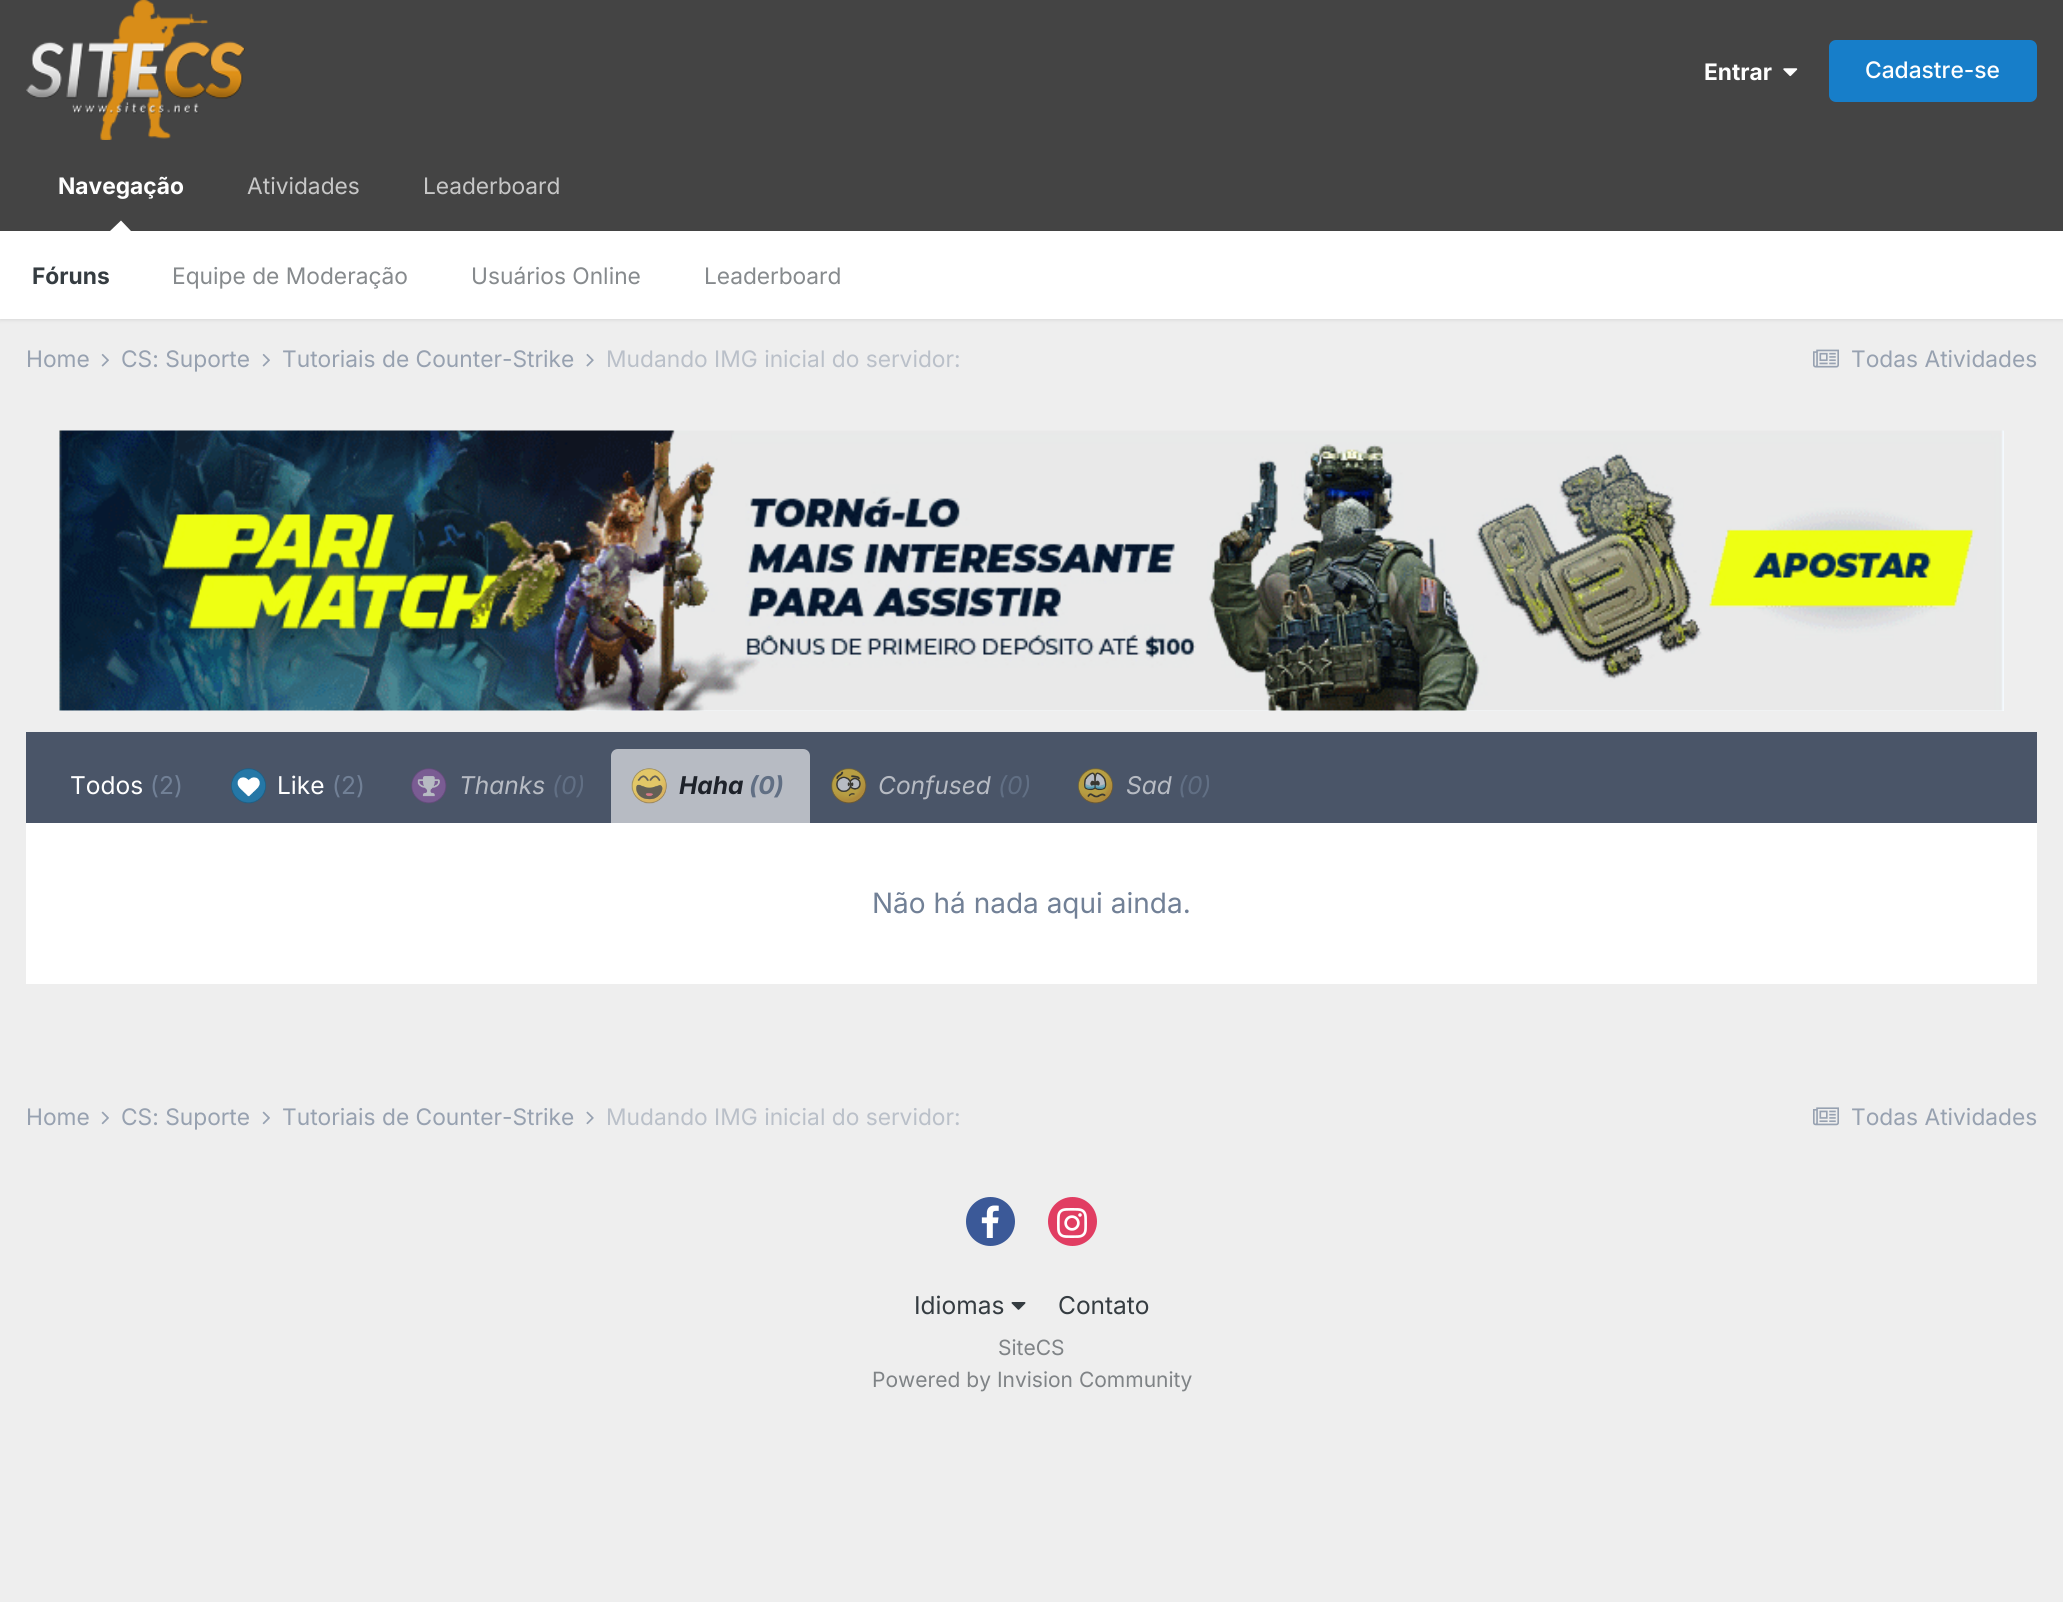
import math
import cairo

surface = cairo.ImageSurface(cairo.FORMAT_RGB24, 2063, 1602)
ctx = cairo.Context(surface)
options = cairo.FontOptions()
options.set_hint_metrics(cairo.HINT_METRICS_OFF)
options.set_hint_style(cairo.HINT_STYLE_NONE)
ctx.set_font_options(options)
ctx.set_miter_limit(4)


def set_color(code):
    ctx.set_source_rgb(*(v / 255 for v in bytes.fromhex(code[-6:])))


def draw_text(x, y, s, family, size, color, bold=False, italic=False):
    ctx.select_font_face(family, cairo.FONT_SLANT_ITALIC if italic else cairo.FONT_SLANT_NORMAL, cairo.FONT_WEIGHT_BOLD if bold else cairo.FONT_WEIGHT_NORMAL)
    ctx.set_font_size(size)
    set_color(color)
    ctx.move_to(x, y)
    ctx.show_text(s)


def fill_rect(x, y, w, h, color):
    set_color(color)
    ctx.rectangle(x, y, w, h)
    ctx.fill()


def rounded_rect(x, y, w, h, r):
    ctx.new_sub_path()
    for i, (u, v) in enumerate([(x + w - r, y + h - r), (x + r, y + h - r), (x + r, y + r), (x + w - r, y + r)]):
        ctx.arc(u, v, r, i * math.pi / 2, (i + 1) * math.pi / 2)
    ctx.close_path()


def draw_shadow(x, y, w, h, r, blur, alpha):
    ctx.push_group_with_content(cairo.CONTENT_ALPHA)
    ctx.set_operator(cairo.OPERATOR_SOURCE)
    for i in range(15, -16, -2):
        e = blur * i / 6
        if min(w, h) + 2 * e > 0:
            ctx.set_source_rgba(0, 0, 0, alpha * math.erfc((i - 1) / 8.5) / 2)
            rounded_rect(x - e, y - e, w + 2 * e, h + 2 * e, max(0, min(r + e + blur * .6, min(w, h) / 2 + e)))
            ctx.fill()
    ctx.mask(ctx.pop_group())


def draw_image(path, x, y, w, h):
    ctx.save()
    ctx.set_source_surface(cairo.ImageSurface.create_from_png(path), x, y)
    ctx.rectangle(x, y, w, h)
    ctx.fill()
    ctx.restore()


set_color("#eeeeee")
ctx.paint()
fill_rect(0, 0, 2063, 231, "#444444")
draw_image("assets/img1.png", 26, 0, 219, 140)
draw_text(1704, 80, "Entrar", "Inter", 22.75, "#ffffff", bold=True)
draw_image("assets/img2.png", 1783, 68, 15, 9)
set_color("#177ec9")
rounded_rect(1829, 40, 208, 62, 7)
ctx.fill()
draw_text(1865, 78, "Cadastre-se", "Inter Medium", 22.75, "#ffffff")
draw_text(58, 194, "Navegação", "Inter", 22.75, "#ffffff", bold=True)
set_color("#000000")
draw_shadow(0, 233, 2063, 87, 0, 2, 0.1)
set_color("#ffffff")
ctx.new_path()
ctx.move_to(131, 231)
ctx.line_to(110, 231)
ctx.line_to(121, 220.5)
ctx.close_path()
ctx.fill()
fill_rect(0, 231, 2063, 88, "#ffffff")
draw_text(32, 284, "Fóruns", "Inter", 22.75, "#353c41", bold=True)
draw_text(172, 284, "Equipe de Moderação", "Inter", 22.75, "#868a8d")
draw_text(471, 284, "Usuários Online", "Inter", 22.75, "#868a8d")
draw_text(704, 284, "Leaderboard", "Inter", 22.75, "#868a8d")
draw_text(247, 194, "Atividades", "Inter", 22.75, "#c7c7c7")
draw_text(423, 194, "Leaderboard", "Inter", 22.75, "#c7c7c7")
draw_text(26, 367, "Home", "Inter", 22.75, "#97a1b0")
draw_image("assets/img3.png", 101, 353, 8, 14)
draw_text(121, 367, "CS: Suporte", "Inter", 22.75, "#97a1b0")
draw_image("assets/img3.png", 262, 353, 8, 14)
draw_text(282, 367, "Tutoriais de Counter-Strike", "Inter", 22.75, "#97a1b0")
draw_image("assets/img4.png", 586, 353, 8, 14)
draw_text(606, 367, "Mudando IMG inicial do servidor:", "Inter", 22.75, "#bac0c9")
draw_image("assets/img5.png", 1813, 349, 26, 19)
draw_text(1851, 367, "Todas Atividades", "Inter", 22.75, "#97a1b0")
fill_rect(60, 431, 1944, 280, "#f7fafc")
draw_image("assets/img6.png", 59, 430, 1945, 281)
fill_rect(26, 732, 2011, 91, "#4a5568")
draw_text(70, 794, "Todos", "Inter", 24.5, "#ffffff")
draw_text(150, 794, "(2)", "Inter", 24.5, "#718096")
draw_image("assets/img7.png", 231, 768, 35, 36)
draw_text(277, 794, "Like", "Inter", 24.5, "#ffffff")
draw_text(332, 794, "(2)", "Inter", 24.5, "#718096")
draw_image("assets/img8.png", 411, 768, 36, 36)
draw_text(459, 794, "Thanks", "Inter", 24.5, "#b7bbc3", italic=True)
draw_text(552, 794, "(0)", "Inter", 24.5, "#616f84", italic=True)
set_color("#b7bbc3")
ctx.new_path()
ctx.move_to(618, 749)
ctx.line_to(803, 749)
ctx.curve_to(807, 749, 810, 752, 810, 756)
ctx.line_to(810, 823)
ctx.line_to(611, 823)
ctx.line_to(611, 756)
ctx.curve_to(611, 752, 614, 749, 618, 749)
ctx.close_path()
ctx.fill()
draw_image("assets/img9.png", 631, 768, 36, 36)
draw_text(679, 794, "Haha", "Inter", 24.5, "#1e222a", bold=True, italic=True)
draw_text(749, 794, "(0)", "Inter", 24.5, "#616f84", bold=True, italic=True)
draw_image("assets/img10.png", 831, 768, 36, 36)
draw_text(878, 794, "Confused", "Inter", 24.5, "#b7bbc3", italic=True)
draw_text(998, 794, "(0)", "Inter", 24.5, "#616f84", italic=True)
draw_image("assets/img11.png", 1078, 768, 35, 36)
draw_text(1126, 794, "Sad", "Inter", 24.5, "#b7bbc3", italic=True)
draw_text(1178, 794, "(0)", "Inter", 24.5, "#616f84", italic=True)
fill_rect(26, 823, 2011, 161, "#ffffff")
draw_text(872, 913, "Não há nada aqui ainda.", "Inter", 28, "#718096")
draw_text(26, 1125, "Home", "Inter", 22.75, "#97a1b0")
draw_image("assets/img12.png", 101, 1111, 8, 14)
draw_text(121, 1125, "CS: Suporte", "Inter", 22.75, "#97a1b0")
draw_image("assets/img12.png", 262, 1111, 8, 14)
draw_text(282, 1125, "Tutoriais de Counter-Strike", "Inter", 22.75, "#97a1b0")
draw_image("assets/img13.png", 586, 1111, 8, 14)
draw_text(606, 1125, "Mudando IMG inicial do servidor:", "Inter", 22.75, "#bac0c9")
draw_image("assets/img14.png", 1813, 1107, 26, 19)
draw_text(1851, 1125, "Todas Atividades", "Inter", 22.75, "#97a1b0")
set_color("#3b5998")
ctx.new_path()
ctx.arc(990.5, 1221.5, 24.5, 0, 2 * math.pi)
ctx.fill()
draw_image("assets/img15.png", 981, 1205, 18, 33)
set_color("#e13d62")
ctx.arc(1072.5, 1221.5, 24.5, 0, 2 * math.pi)
ctx.fill()
draw_image("assets/img16.png", 1057, 1208, 30, 30)
draw_text(914, 1314, "Idiomas", "Inter", 24.5, "#353c41")
draw_image("assets/img17.png", 1011, 1302, 15, 8)
draw_text(1058, 1314, "Contato", "Inter", 24.5, "#353c41")
draw_text(998, 1355, "SiteCS", "Inter", 21, "#7f8386")
draw_text(872, 1387, "Powered by Invision Community", "Inter", 21, "#7f8386")
surface.write_to_png("output.png")
